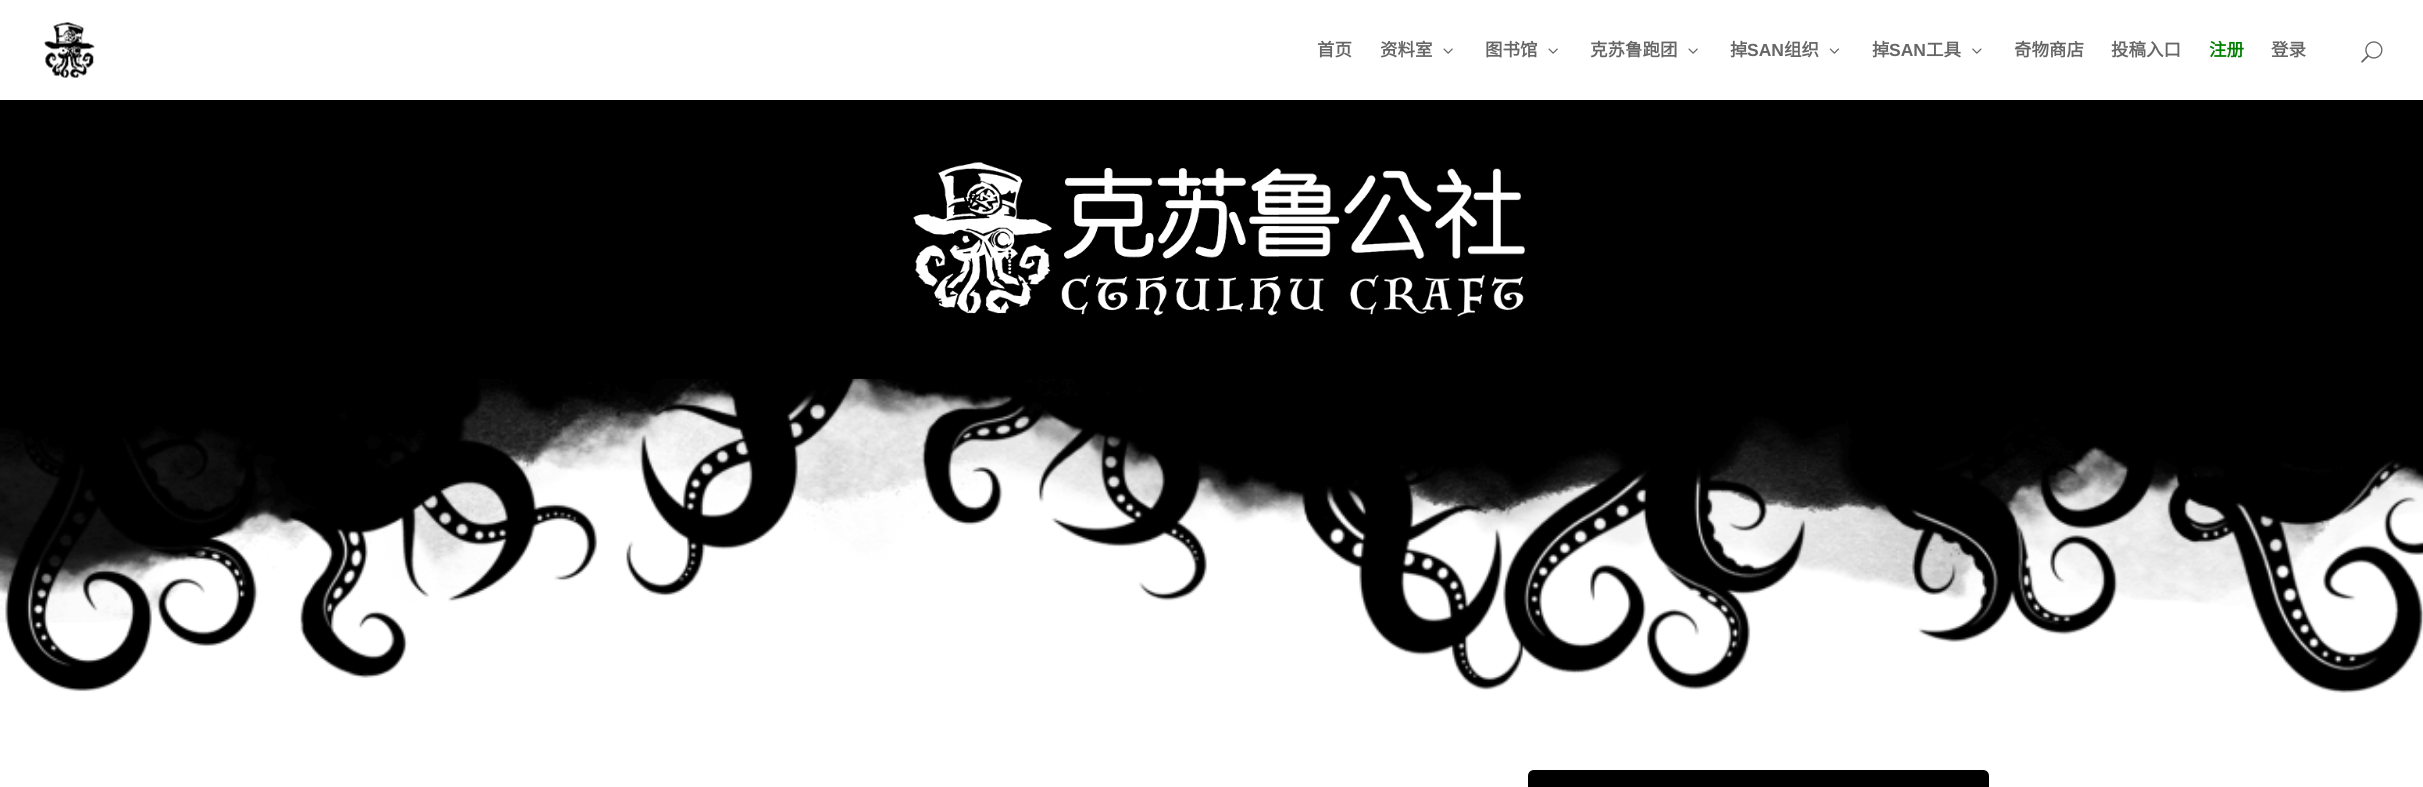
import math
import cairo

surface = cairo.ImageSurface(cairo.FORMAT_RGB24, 2423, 787)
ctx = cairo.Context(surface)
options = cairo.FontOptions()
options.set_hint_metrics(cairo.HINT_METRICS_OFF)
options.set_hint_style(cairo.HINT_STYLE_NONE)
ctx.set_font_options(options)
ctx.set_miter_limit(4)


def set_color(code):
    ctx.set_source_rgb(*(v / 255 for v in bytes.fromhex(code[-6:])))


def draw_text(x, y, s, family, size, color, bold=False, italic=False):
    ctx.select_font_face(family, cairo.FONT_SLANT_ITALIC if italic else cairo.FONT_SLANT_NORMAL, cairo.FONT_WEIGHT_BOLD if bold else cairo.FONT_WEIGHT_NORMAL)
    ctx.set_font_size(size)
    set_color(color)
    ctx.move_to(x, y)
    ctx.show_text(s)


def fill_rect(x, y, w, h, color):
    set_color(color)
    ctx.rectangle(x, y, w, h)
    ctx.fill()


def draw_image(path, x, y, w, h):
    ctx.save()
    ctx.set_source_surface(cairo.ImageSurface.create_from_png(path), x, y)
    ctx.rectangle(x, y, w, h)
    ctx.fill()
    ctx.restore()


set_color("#ffffff")
ctx.paint()
draw_image("assets/img1.png", 44, 22, 51, 56)
draw_text(1317, 56, "首页", "Noto Sans CJK SC", 17.5, "#666666", bold=True)
draw_text(1380, 56, "资料室", "Noto Sans CJK SC", 17.5, "#666666", bold=True)
draw_image("assets/img2.png", 1443, 48, 10, 6)
draw_text(1485, 56, "图书馆", "Noto Sans CJK SC", 17.5, "#666666", bold=True)
draw_image("assets/img2.png", 1548, 48, 10, 6)
draw_text(1590, 56, "克苏鲁跑团", "Noto Sans CJK SC", 17.5, "#666666", bold=True)
draw_image("assets/img2.png", 1688, 48, 10, 6)
draw_text(1730, 56, "掉", "Noto Sans CJK SC", 17.5, "#666666", bold=True)
draw_text(1747, 56, "SAN", "Liberation Sans", 17.5, "#666666", bold=True)
draw_text(1784, 56, "组织", "Noto Sans CJK SC", 17.5, "#666666", bold=True)
draw_image("assets/img3.png", 1829, 48, 10, 6)
draw_text(1872, 56, "掉", "Noto Sans CJK SC", 17.5, "#666666", bold=True)
draw_text(1889, 56, "SAN", "Liberation Sans", 17.5, "#666666", bold=True)
draw_text(1926, 56, "工具", "Noto Sans CJK SC", 17.5, "#666666", bold=True)
draw_image("assets/img4.png", 1972, 48, 10, 6)
draw_text(2014, 56, "奇物商店", "Noto Sans CJK SC", 17.5, "#666666", bold=True)
draw_text(2111, 56, "投稿入口", "Noto Sans CJK SC", 17.5, "#666666", bold=True)
draw_text(2209, 56, "注册", "Noto Sans CJK SC", 17.5, "#008000", bold=True)
draw_text(2271, 56, "登录", "Noto Sans CJK SC", 17.5, "#666666", bold=True)
draw_image("assets/img5.png", 2361, 41, 22, 22)
fill_rect(0, 100, 2423, 279, "#000000")
draw_image("assets/img6.png", 913, 162, 612, 155)
draw_image("assets/img7.png", 0, 378, 2423, 315)
ctx.new_path()
ctx.move_to(1534, 770)
ctx.line_to(1983, 770)
ctx.curve_to(1986.5, 770, 1989, 772.5, 1989, 776)
ctx.line_to(1989, 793)
ctx.line_to(1528, 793)
ctx.line_to(1528, 776)
ctx.curve_to(1528, 772.5, 1530.5, 770, 1534, 770)
ctx.close_path()
ctx.fill()
surface.write_to_png("output.png")
